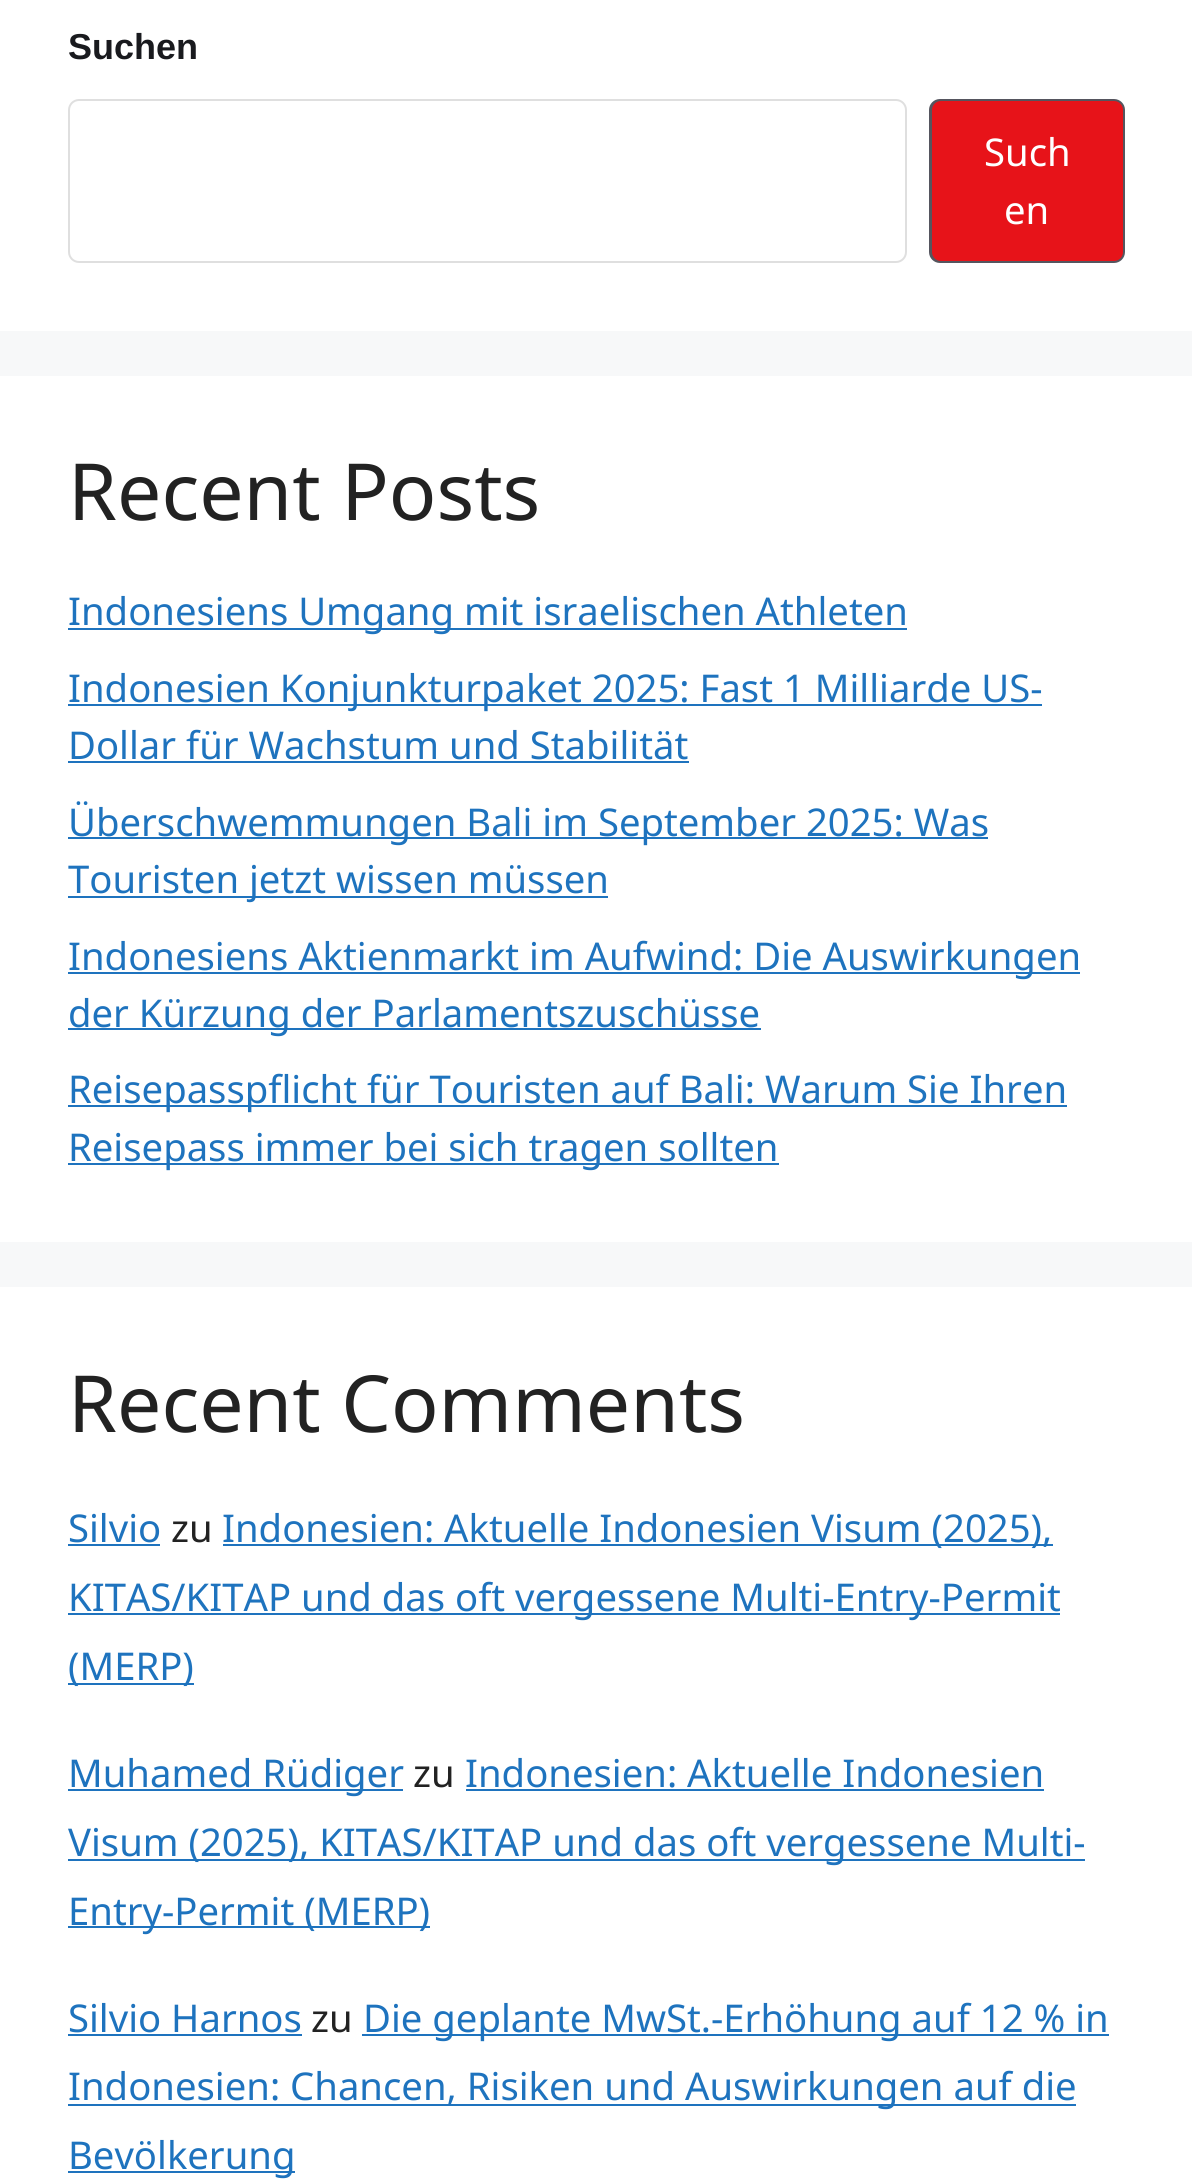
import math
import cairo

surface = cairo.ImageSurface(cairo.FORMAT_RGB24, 1192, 2180)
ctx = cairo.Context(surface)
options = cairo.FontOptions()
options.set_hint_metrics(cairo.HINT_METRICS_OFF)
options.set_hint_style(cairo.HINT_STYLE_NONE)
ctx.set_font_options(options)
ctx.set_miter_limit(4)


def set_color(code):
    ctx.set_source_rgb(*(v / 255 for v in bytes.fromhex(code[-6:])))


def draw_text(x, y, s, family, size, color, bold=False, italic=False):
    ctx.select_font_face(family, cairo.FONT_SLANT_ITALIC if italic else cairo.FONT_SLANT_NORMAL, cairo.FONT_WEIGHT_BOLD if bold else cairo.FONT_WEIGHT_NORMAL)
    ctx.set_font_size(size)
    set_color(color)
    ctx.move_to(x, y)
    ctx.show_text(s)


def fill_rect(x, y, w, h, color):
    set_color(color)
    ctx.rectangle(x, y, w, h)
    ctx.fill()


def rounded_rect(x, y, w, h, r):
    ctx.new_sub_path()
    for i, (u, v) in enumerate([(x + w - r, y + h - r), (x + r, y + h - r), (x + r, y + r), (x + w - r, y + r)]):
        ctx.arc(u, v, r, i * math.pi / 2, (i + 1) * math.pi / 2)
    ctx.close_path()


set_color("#f7f8f9")
ctx.paint()
fill_rect(0, 0, 1192, 331, "#ffffff")
draw_text(68, 59, "Suchen", "Liberation Sans", 36, "#191a1e", bold=True)
rounded_rect(69, 100, 837, 162, 10)
set_color("#dfdfdf")
ctx.stroke()
set_color("#55555e")
rounded_rect(929, 99, 196, 164, 11)
ctx.fill()
set_color("#e71319")
rounded_rect(932, 101, 191, 160, 9)
ctx.fill()
draw_text(984, 166, "Such", "Noto Sans", 38.25, "#ffffff")
draw_text(1004, 224, "en", "Noto Sans", 38.25, "#ffffff")
fill_rect(0, 376, 1192, 866, "#ffffff")
draw_text(68, 520, "Recent Posts", "Noto Sans", 78.75, "#222222")
fill_rect(68, 628, 839, 2, "#1e73be")
draw_text(68, 625, "Indonesiens Umgang mit israelischen Athleten", "Noto Sans", 38.25, "#1e73be")
fill_rect(68, 704, 974, 2, "#1e73be")
draw_text(68, 702, "Indonesien Konjunkturpaket 2025: Fast 1 Milliarde US-", "Noto Sans", 38.25, "#1e73be")
draw_text(68, 759, "Dollar für Wachstum und Stabilität", "Noto Sans", 38.25, "#1e73be")
fill_rect(68, 761, 621, 2, "#1e73be")
fill_rect(68, 837, 920, 2, "#1e73be")
draw_text(68, 836, "Überschwemmungen Bali im September 2025: Was", "Noto Sans", 38.25, "#1e73be")
fill_rect(68, 896, 540, 2, "#1e73be")
draw_text(68, 893, "Touristen jetzt wissen müssen", "Noto Sans", 38.25, "#1e73be")
fill_rect(68, 972, 1012, 2, "#1e73be")
draw_text(68, 970, "Indonesiens Aktienmarkt im Aufwind: Die Auswirkungen", "Noto Sans", 38.25, "#1e73be")
fill_rect(68, 1028, 693, 2, "#1e73be")
draw_text(68, 1027, "der Kürzung der Parlamentszuschüsse", "Noto Sans", 38.25, "#1e73be")
fill_rect(68, 1105, 999, 2, "#1e73be")
draw_text(68, 1103, "Reisepasspflicht für Touristen auf Bali: Warum Sie Ihren", "Noto Sans", 38.25, "#1e73be")
fill_rect(68, 1163, 711, 2, "#1e73be")
draw_text(68, 1161, "Reisepass immer bei sich tragen sollten", "Noto Sans", 38.25, "#1e73be")
fill_rect(0, 1287, 1192, 893, "#ffffff")
draw_text(68, 1432, "Recent Comments", "Noto Sans", 78.75, "#222222")
draw_text(68, 1542, "Silvio", "Noto Sans", 38.25, "#1e73be")
fill_rect(68, 1544, 92, 2, "#1e73be")
draw_text(171, 1542, "zu", "Noto Sans", 38.25, "#222222")
fill_rect(223, 1544, 830, 2, "#1e73be")
draw_text(222, 1542, "Indonesien: Aktuelle Indonesien Visum (2025),", "Noto Sans", 38.25, "#1e73be")
fill_rect(68, 1613, 992, 2, "#1e73be")
draw_text(68, 1611, "KITAS/KITAP und das oft vergessene Multi-Entry-Permit", "Noto Sans", 38.25, "#1e73be")
fill_rect(68, 1683, 126, 2, "#1e73be")
draw_text(68, 1680, "(MERP)", "Noto Sans", 38.25, "#1e73be")
fill_rect(68, 1789, 335, 2, "#1e73be")
draw_text(68, 1787, "Muhamed Rüdiger", "Noto Sans", 38.25, "#1e73be")
draw_text(413, 1787, "zu", "Noto Sans", 38.25, "#222222")
draw_text(465, 1787, "Indonesien: Aktuelle Indonesien", "Noto Sans", 38.25, "#1e73be")
fill_rect(466, 1789, 578, 2, "#1e73be")
fill_rect(68, 1859, 1017, 2, "#1e73be")
draw_text(68, 1856, "Visum (2025), KITAS/KITAP und das oft vergessene Multi-", "Noto Sans", 38.25, "#1e73be")
fill_rect(68, 1926, 362, 2, "#1e73be")
draw_text(68, 1925, "Entry-Permit (MERP)", "Noto Sans", 38.25, "#1e73be")
draw_text(68, 2032, "Silvio Harnos", "Noto Sans", 38.25, "#1e73be")
fill_rect(68, 2034, 234, 2, "#1e73be")
draw_text(311, 2032, "zu", "Noto Sans", 38.25, "#222222")
fill_rect(362, 2034, 747, 2, "#1e73be")
draw_text(363, 2032, "Die geplante MwSt.-Erhöhung auf 12 % in", "Noto Sans", 38.25, "#1e73be")
fill_rect(68, 2104, 1008, 2, "#1e73be")
draw_text(68, 2100, "Indonesien: Chancen, Risiken und Auswirkungen auf die", "Noto Sans", 38.25, "#1e73be")
fill_rect(68, 2171, 227, 2, "#1e73be")
draw_text(68, 2169, "Bevölkerung", "Noto Sans", 38.25, "#1e73be")
surface.write_to_png("output.png")
